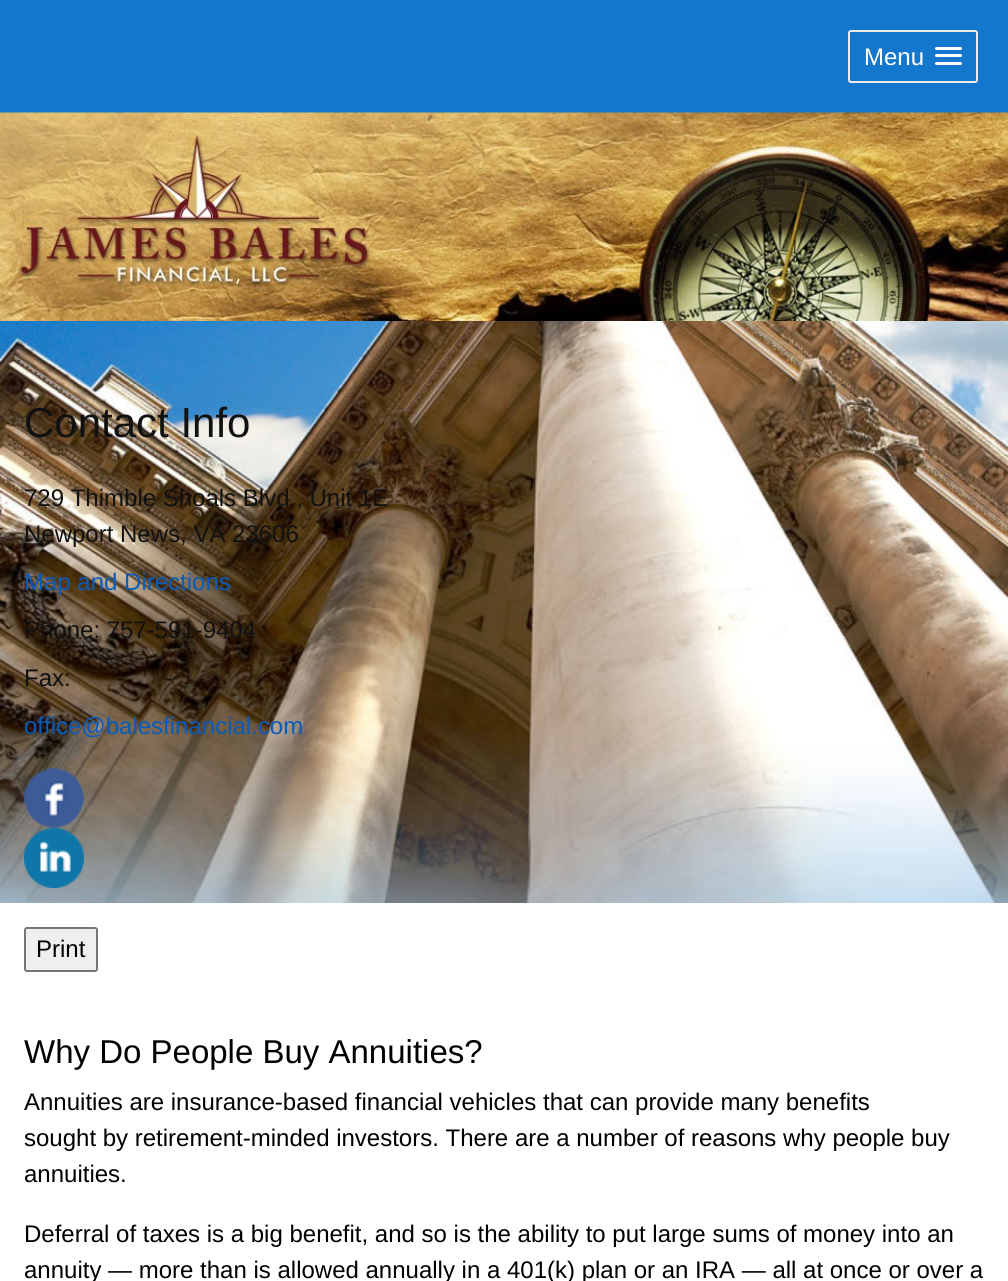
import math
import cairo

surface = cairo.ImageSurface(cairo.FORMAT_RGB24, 1008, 1281)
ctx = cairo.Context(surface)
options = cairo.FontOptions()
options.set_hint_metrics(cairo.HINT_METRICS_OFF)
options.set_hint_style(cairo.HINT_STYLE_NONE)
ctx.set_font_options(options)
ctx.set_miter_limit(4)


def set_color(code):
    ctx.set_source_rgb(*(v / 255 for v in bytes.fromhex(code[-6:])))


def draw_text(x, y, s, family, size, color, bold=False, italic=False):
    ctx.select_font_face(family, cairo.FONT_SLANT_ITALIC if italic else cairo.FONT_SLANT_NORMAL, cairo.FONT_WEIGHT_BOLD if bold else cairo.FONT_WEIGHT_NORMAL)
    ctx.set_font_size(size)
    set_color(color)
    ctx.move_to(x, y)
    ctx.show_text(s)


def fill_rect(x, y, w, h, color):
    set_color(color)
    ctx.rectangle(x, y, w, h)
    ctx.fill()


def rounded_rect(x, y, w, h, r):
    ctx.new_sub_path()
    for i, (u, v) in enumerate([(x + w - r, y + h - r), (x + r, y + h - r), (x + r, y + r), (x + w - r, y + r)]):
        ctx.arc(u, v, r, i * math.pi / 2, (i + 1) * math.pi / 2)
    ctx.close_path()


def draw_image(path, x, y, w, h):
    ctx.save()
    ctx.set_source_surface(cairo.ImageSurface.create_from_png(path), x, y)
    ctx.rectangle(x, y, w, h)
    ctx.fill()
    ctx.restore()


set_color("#ffffff")
ctx.paint()
draw_image("assets/img1.png", 0, 321, 1008, 582)
fill_rect(0, 0, 1008, 113, "#1377cd")
rounded_rect(849, 31, 128, 51, 2)
set_color("#ececec")
ctx.stroke()
draw_text(864, 65, "Menu", "Liberation Sans", 24, "#ffffff")
rounded_rect(935, 47, 27, 3, 1.5)
ctx.fill()
rounded_rect(935, 54, 27, 3, 1.5)
ctx.fill()
rounded_rect(935, 62, 27, 3, 1.5)
ctx.fill()
draw_image("assets/img2.png", 0, 112, 1008, 209)
draw_text(24, 437, "Contact Info", "Liberation Sans", 42, "#111111")
draw_text(24, 506, "729 Thimble Shoals Blvd., Unit 1E", "Liberation Sans", 24, "#111111")
draw_text(24, 542, "Newport News, VA 23606", "Liberation Sans", 24, "#111111")
draw_text(24, 590, "Map and Directions", "Liberation Sans", 24, "#085bbb")
draw_text(24, 638, "Phone: 757-591-9404", "Liberation Sans", 24, "#111111")
draw_text(24, 686, "Fax:", "Liberation Sans", 24, "#111111")
draw_text(117, 686, "-", "Liberation Sans", 24, "#111111")
draw_text(165, 686, "-", "Liberation Sans", 24, "#111111")
draw_text(24, 734, "office@balesfinancial.com", "Liberation Sans", 24, "#085bbb")
draw_image("assets/img3.png", 24, 768, 60, 60)
draw_image("assets/img4.png", 24, 828, 60, 60)
set_color("#efefef")
rounded_rect(25, 928, 72, 43, 2)
ctx.fill_preserve()
set_color("#767676")
ctx.stroke()
draw_text(36, 957, "Print", "Liberation Sans", 24, "#000000")
draw_text(24, 1063, "Why Do People Buy Annuities?", "Liberation Sans", 33, "#000000")
draw_text(24, 1110, "Annuities are insurance-based financial vehicles that can provide many benefits", "Liberation Sans", 24, "#000000")
draw_text(24, 1146, "sought by retirement-minded investors. There are a number of reasons why people buy", "Liberation Sans", 24, "#000000")
draw_text(24, 1182, "annuities.", "Liberation Sans", 24, "#000000")
draw_text(24, 1242, "Deferral of taxes is a big benefit, and so is the ability to put large sums of money into an", "Liberation Sans", 24, "#000000")
draw_text(24, 1278, "annuity — more than is allowed annually in a 401(k) plan or an IRA — all at once or over a", "Liberation Sans", 24, "#000000")
surface.write_to_png("output.png")
